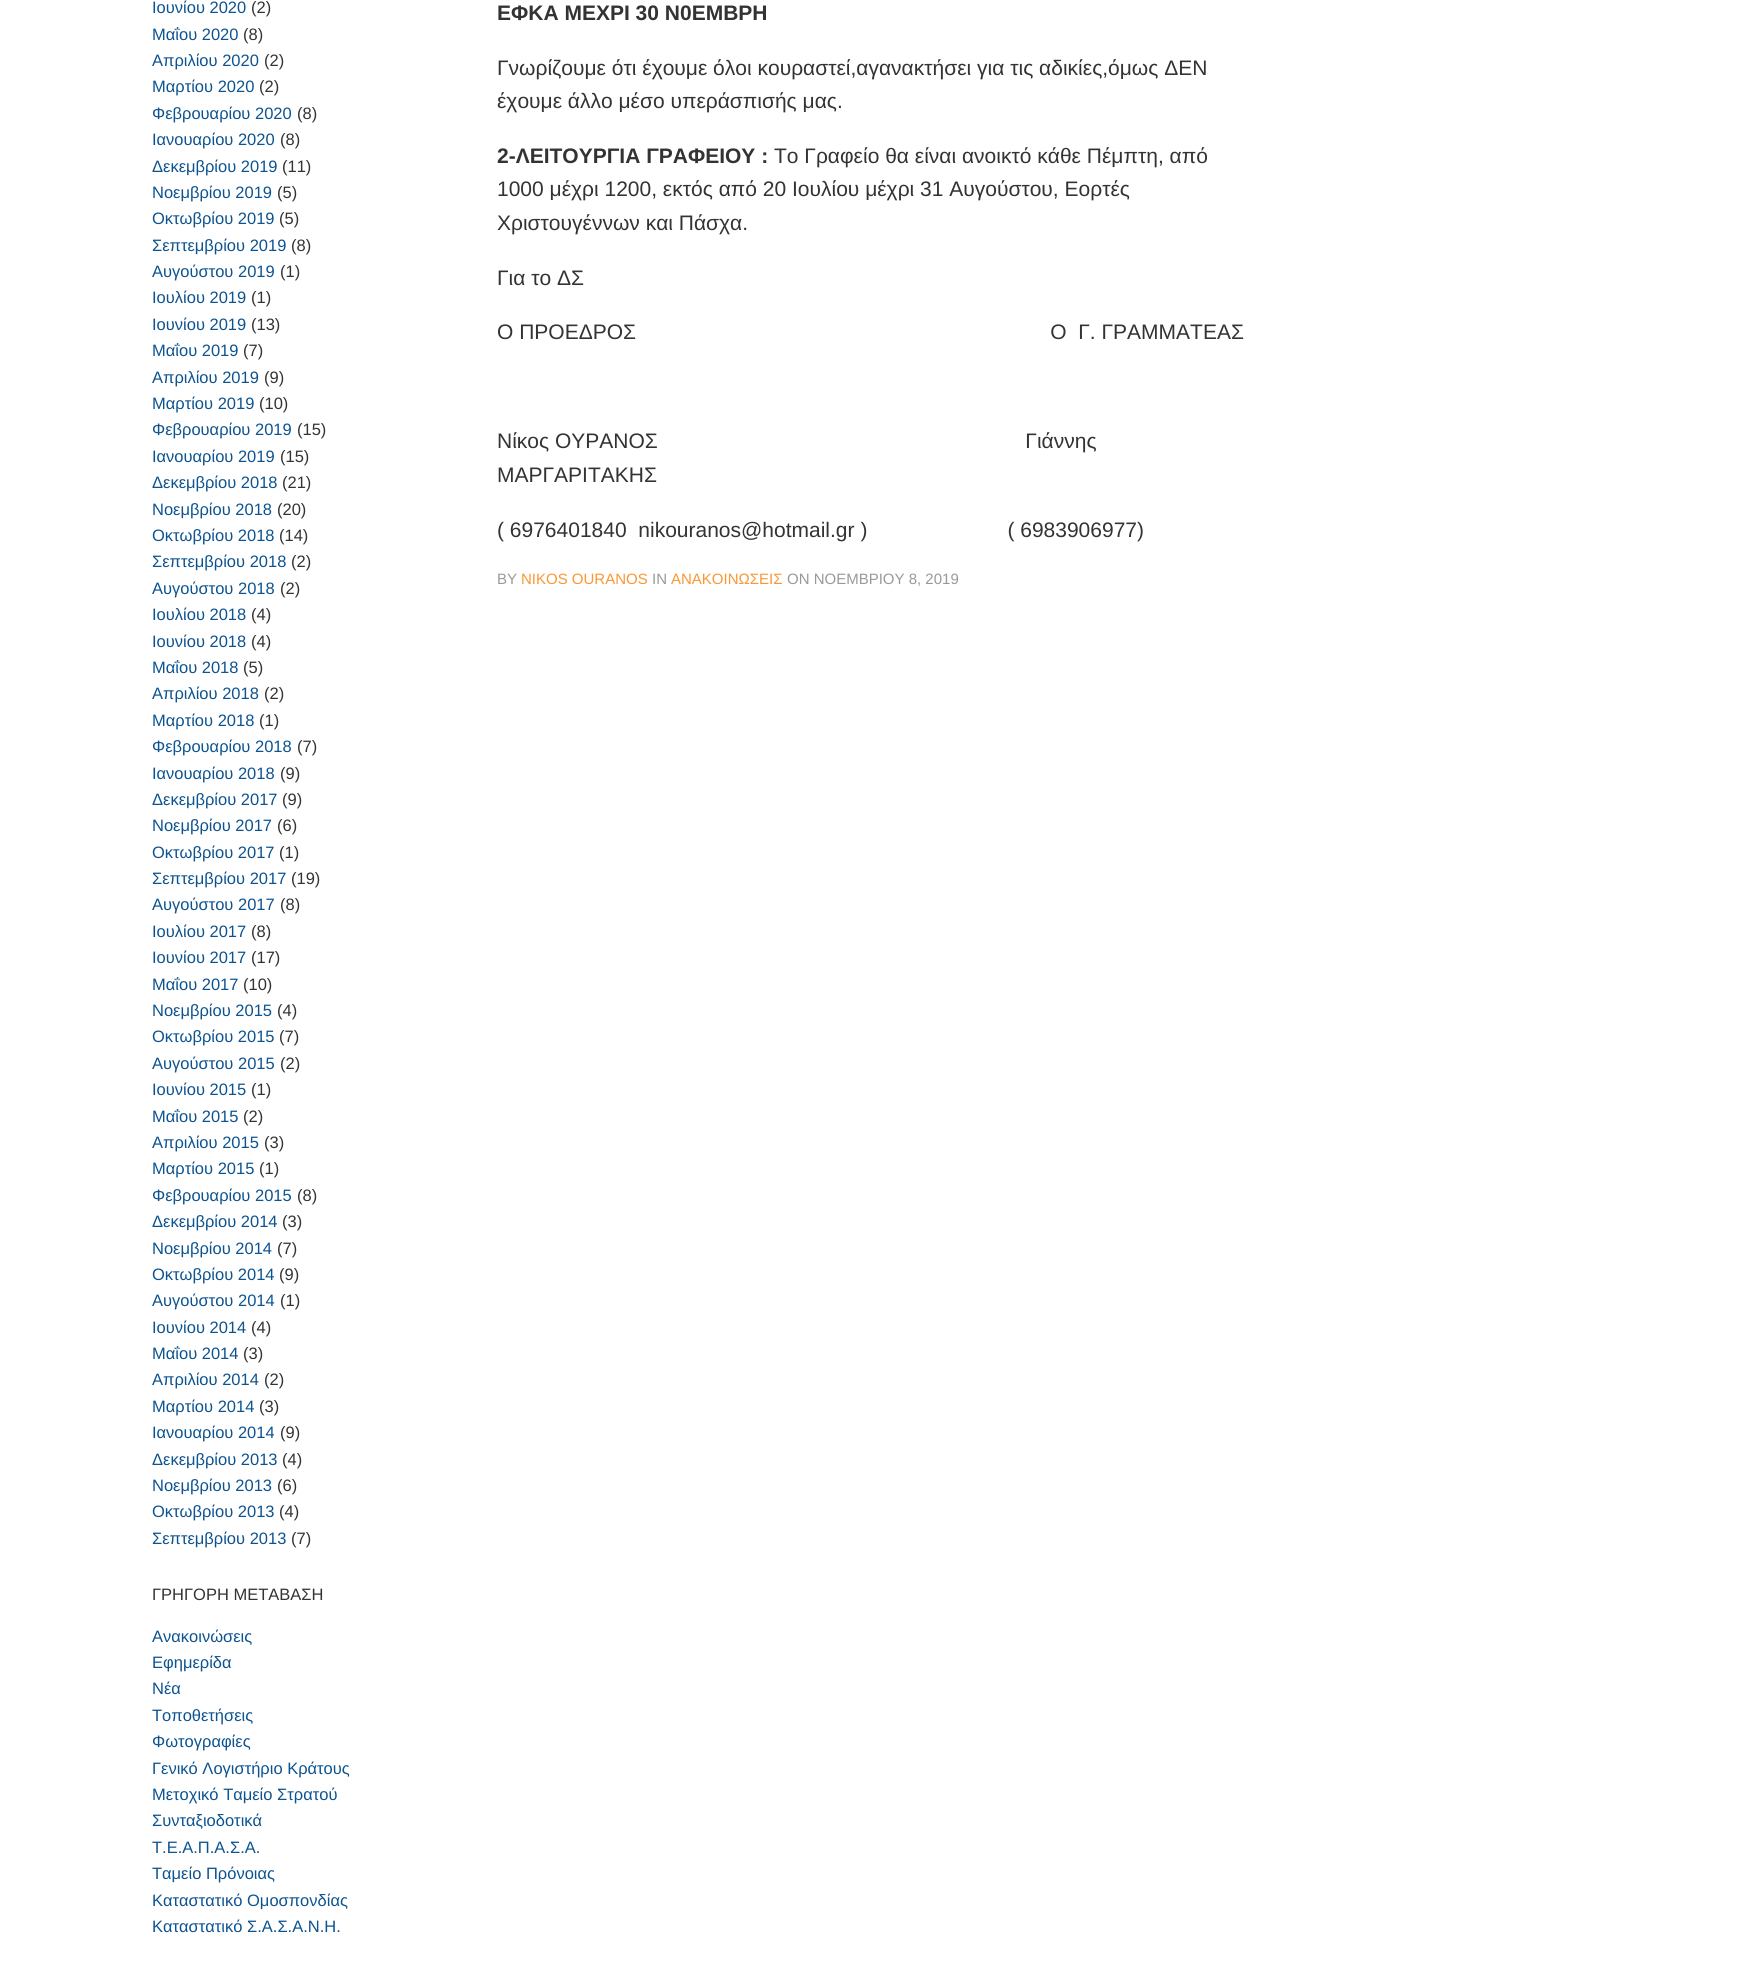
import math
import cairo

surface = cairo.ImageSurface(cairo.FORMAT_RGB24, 1744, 1985)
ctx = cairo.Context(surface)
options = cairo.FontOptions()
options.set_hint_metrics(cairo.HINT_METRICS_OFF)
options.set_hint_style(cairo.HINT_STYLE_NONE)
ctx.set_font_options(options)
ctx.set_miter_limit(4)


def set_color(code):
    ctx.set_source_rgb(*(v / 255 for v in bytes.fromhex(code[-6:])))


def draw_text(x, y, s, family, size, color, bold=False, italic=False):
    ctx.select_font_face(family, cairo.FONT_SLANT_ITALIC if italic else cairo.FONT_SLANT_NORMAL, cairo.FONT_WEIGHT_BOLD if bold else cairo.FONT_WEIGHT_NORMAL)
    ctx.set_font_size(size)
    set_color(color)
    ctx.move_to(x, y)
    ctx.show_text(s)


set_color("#ffffff")
ctx.paint()
draw_text(152, 13, "Ιουνίου 2020", "Liberation Sans", 16.5, "#0c5390")
draw_text(251, 13, "(2)", "Liberation Sans", 16.5, "#333333")
draw_text(152, 40, "Μαΐου 2020", "Liberation Sans", 16.5, "#0c5390")
draw_text(243, 40, "(8)", "Liberation Sans", 16.5, "#333333")
draw_text(152, 66, "Απριλίου 2020", "Liberation Sans", 16.5, "#0c5390")
draw_text(264, 66, "(2)", "Liberation Sans", 16.5, "#333333")
draw_text(152, 92, "Μαρτίου 2020", "Liberation Sans", 16.5, "#0c5390")
draw_text(259, 92, "(2)", "Liberation Sans", 16.5, "#333333")
draw_text(152, 119, "Φεβρουαρίου 2020", "Liberation Sans", 16.5, "#0c5390")
draw_text(297, 119, "(8)", "Liberation Sans", 16.5, "#333333")
draw_text(152, 145, "Ιανουαρίου 2020", "Liberation Sans", 16.5, "#0c5390")
draw_text(280, 145, "(8)", "Liberation Sans", 16.5, "#333333")
draw_text(152, 172, "Δεκεμβρίου 2019", "Liberation Sans", 16.5, "#0c5390")
draw_text(282, 172, "(11)", "Liberation Sans", 16.5, "#333333")
draw_text(152, 198, "Νοεμβρίου 2019", "Liberation Sans", 16.5, "#0c5390")
draw_text(277, 198, "(5)", "Liberation Sans", 16.5, "#333333")
draw_text(152, 224, "Οκτωβρίου 2019", "Liberation Sans", 16.5, "#0c5390")
draw_text(279, 224, "(5)", "Liberation Sans", 16.5, "#333333")
draw_text(152, 251, "Σεπτεμβρίου 2019", "Liberation Sans", 16.5, "#0c5390")
draw_text(291, 251, "(8)", "Liberation Sans", 16.5, "#333333")
draw_text(152, 277, "Αυγούστου 2019", "Liberation Sans", 16.5, "#0c5390")
draw_text(280, 277, "(1)", "Liberation Sans", 16.5, "#333333")
draw_text(152, 303, "Ιουλίου 2019", "Liberation Sans", 16.5, "#0c5390")
draw_text(251, 303, "(1)", "Liberation Sans", 16.5, "#333333")
draw_text(152, 330, "Ιουνίου 2019", "Liberation Sans", 16.5, "#0c5390")
draw_text(251, 330, "(13)", "Liberation Sans", 16.5, "#333333")
draw_text(152, 356, "Μαΐου 2019", "Liberation Sans", 16.5, "#0c5390")
draw_text(243, 356, "(7)", "Liberation Sans", 16.5, "#333333")
draw_text(152, 383, "Απριλίου 2019", "Liberation Sans", 16.5, "#0c5390")
draw_text(264, 383, "(9)", "Liberation Sans", 16.5, "#333333")
draw_text(152, 409, "Μαρτίου 2019", "Liberation Sans", 16.5, "#0c5390")
draw_text(259, 409, "(10)", "Liberation Sans", 16.5, "#333333")
draw_text(152, 435, "Φεβρουαρίου 2019", "Liberation Sans", 16.5, "#0c5390")
draw_text(297, 435, "(15)", "Liberation Sans", 16.5, "#333333")
draw_text(152, 462, "Ιανουαρίου 2019", "Liberation Sans", 16.5, "#0c5390")
draw_text(280, 462, "(15)", "Liberation Sans", 16.5, "#333333")
draw_text(152, 488, "Δεκεμβρίου 2018", "Liberation Sans", 16.5, "#0c5390")
draw_text(282, 488, "(21)", "Liberation Sans", 16.5, "#333333")
draw_text(152, 515, "Νοεμβρίου 2018", "Liberation Sans", 16.5, "#0c5390")
draw_text(277, 515, "(20)", "Liberation Sans", 16.5, "#333333")
draw_text(152, 541, "Οκτωβρίου 2018", "Liberation Sans", 16.5, "#0c5390")
draw_text(279, 541, "(14)", "Liberation Sans", 16.5, "#333333")
draw_text(152, 567, "Σεπτεμβρίου 2018", "Liberation Sans", 16.5, "#0c5390")
draw_text(291, 567, "(2)", "Liberation Sans", 16.5, "#333333")
draw_text(152, 594, "Αυγούστου 2018", "Liberation Sans", 16.5, "#0c5390")
draw_text(280, 594, "(2)", "Liberation Sans", 16.5, "#333333")
draw_text(152, 620, "Ιουλίου 2018", "Liberation Sans", 16.5, "#0c5390")
draw_text(251, 620, "(4)", "Liberation Sans", 16.5, "#333333")
draw_text(152, 647, "Ιουνίου 2018", "Liberation Sans", 16.5, "#0c5390")
draw_text(251, 647, "(4)", "Liberation Sans", 16.5, "#333333")
draw_text(152, 673, "Μαΐου 2018", "Liberation Sans", 16.5, "#0c5390")
draw_text(243, 673, "(5)", "Liberation Sans", 16.5, "#333333")
draw_text(152, 699, "Απριλίου 2018", "Liberation Sans", 16.5, "#0c5390")
draw_text(264, 699, "(2)", "Liberation Sans", 16.5, "#333333")
draw_text(152, 726, "Μαρτίου 2018", "Liberation Sans", 16.5, "#0c5390")
draw_text(259, 726, "(1)", "Liberation Sans", 16.5, "#333333")
draw_text(152, 752, "Φεβρουαρίου 2018", "Liberation Sans", 16.5, "#0c5390")
draw_text(297, 752, "(7)", "Liberation Sans", 16.5, "#333333")
draw_text(152, 779, "Ιανουαρίου 2018", "Liberation Sans", 16.5, "#0c5390")
draw_text(280, 779, "(9)", "Liberation Sans", 16.5, "#333333")
draw_text(152, 805, "Δεκεμβρίου 2017", "Liberation Sans", 16.5, "#0c5390")
draw_text(282, 805, "(9)", "Liberation Sans", 16.5, "#333333")
draw_text(152, 831, "Νοεμβρίου 2017", "Liberation Sans", 16.5, "#0c5390")
draw_text(277, 831, "(6)", "Liberation Sans", 16.5, "#333333")
draw_text(152, 858, "Οκτωβρίου 2017", "Liberation Sans", 16.5, "#0c5390")
draw_text(279, 858, "(1)", "Liberation Sans", 16.5, "#333333")
draw_text(152, 884, "Σεπτεμβρίου 2017", "Liberation Sans", 16.5, "#0c5390")
draw_text(291, 884, "(19)", "Liberation Sans", 16.5, "#333333")
draw_text(152, 910, "Αυγούστου 2017", "Liberation Sans", 16.5, "#0c5390")
draw_text(280, 910, "(8)", "Liberation Sans", 16.5, "#333333")
draw_text(152, 937, "Ιουλίου 2017", "Liberation Sans", 16.5, "#0c5390")
draw_text(251, 937, "(8)", "Liberation Sans", 16.5, "#333333")
draw_text(152, 963, "Ιουνίου 2017", "Liberation Sans", 16.5, "#0c5390")
draw_text(251, 963, "(17)", "Liberation Sans", 16.5, "#333333")
draw_text(152, 990, "Μαΐου 2017", "Liberation Sans", 16.5, "#0c5390")
draw_text(243, 990, "(10)", "Liberation Sans", 16.5, "#333333")
draw_text(152, 1016, "Νοεμβρίου 2015", "Liberation Sans", 16.5, "#0c5390")
draw_text(277, 1016, "(4)", "Liberation Sans", 16.5, "#333333")
draw_text(152, 1042, "Οκτωβρίου 2015", "Liberation Sans", 16.5, "#0c5390")
draw_text(279, 1042, "(7)", "Liberation Sans", 16.5, "#333333")
draw_text(152, 1069, "Αυγούστου 2015", "Liberation Sans", 16.5, "#0c5390")
draw_text(280, 1069, "(2)", "Liberation Sans", 16.5, "#333333")
draw_text(152, 1095, "Ιουνίου 2015", "Liberation Sans", 16.5, "#0c5390")
draw_text(251, 1095, "(1)", "Liberation Sans", 16.5, "#333333")
draw_text(152, 1122, "Μαΐου 2015", "Liberation Sans", 16.5, "#0c5390")
draw_text(243, 1122, "(2)", "Liberation Sans", 16.5, "#333333")
draw_text(152, 1148, "Απριλίου 2015", "Liberation Sans", 16.5, "#0c5390")
draw_text(264, 1148, "(3)", "Liberation Sans", 16.5, "#333333")
draw_text(152, 1174, "Μαρτίου 2015", "Liberation Sans", 16.5, "#0c5390")
draw_text(259, 1174, "(1)", "Liberation Sans", 16.5, "#333333")
draw_text(152, 1201, "Φεβρουαρίου 2015", "Liberation Sans", 16.5, "#0c5390")
draw_text(297, 1201, "(8)", "Liberation Sans", 16.5, "#333333")
draw_text(152, 1227, "Δεκεμβρίου 2014", "Liberation Sans", 16.5, "#0c5390")
draw_text(282, 1227, "(3)", "Liberation Sans", 16.5, "#333333")
draw_text(152, 1254, "Νοεμβρίου 2014", "Liberation Sans", 16.5, "#0c5390")
draw_text(277, 1254, "(7)", "Liberation Sans", 16.5, "#333333")
draw_text(152, 1280, "Οκτωβρίου 2014", "Liberation Sans", 16.5, "#0c5390")
draw_text(279, 1280, "(9)", "Liberation Sans", 16.5, "#333333")
draw_text(152, 1306, "Αυγούστου 2014", "Liberation Sans", 16.5, "#0c5390")
draw_text(280, 1306, "(1)", "Liberation Sans", 16.5, "#333333")
draw_text(152, 1333, "Ιουνίου 2014", "Liberation Sans", 16.5, "#0c5390")
draw_text(251, 1333, "(4)", "Liberation Sans", 16.5, "#333333")
draw_text(152, 1359, "Μαΐου 2014", "Liberation Sans", 16.5, "#0c5390")
draw_text(243, 1359, "(3)", "Liberation Sans", 16.5, "#333333")
draw_text(152, 1385, "Απριλίου 2014", "Liberation Sans", 16.5, "#0c5390")
draw_text(264, 1385, "(2)", "Liberation Sans", 16.5, "#333333")
draw_text(152, 1412, "Μαρτίου 2014", "Liberation Sans", 16.5, "#0c5390")
draw_text(259, 1412, "(3)", "Liberation Sans", 16.5, "#333333")
draw_text(152, 1438, "Ιανουαρίου 2014", "Liberation Sans", 16.5, "#0c5390")
draw_text(280, 1438, "(9)", "Liberation Sans", 16.5, "#333333")
draw_text(152, 1465, "Δεκεμβρίου 2013", "Liberation Sans", 16.5, "#0c5390")
draw_text(282, 1465, "(4)", "Liberation Sans", 16.5, "#333333")
draw_text(152, 1491, "Νοεμβρίου 2013", "Liberation Sans", 16.5, "#0c5390")
draw_text(277, 1491, "(6)", "Liberation Sans", 16.5, "#333333")
draw_text(152, 1517, "Οκτωβρίου 2013", "Liberation Sans", 16.5, "#0c5390")
draw_text(279, 1517, "(4)", "Liberation Sans", 16.5, "#333333")
draw_text(152, 1544, "Σεπτεμβρίου 2013", "Liberation Sans", 16.5, "#0c5390")
draw_text(291, 1544, "(7)", "Liberation Sans", 16.5, "#333333")
draw_text(152, 1600, "ΓΡΗΓΟΡΗ ΜΕΤΑΒΑΣΗ", "Liberation Sans", 16.5, "#333333")
draw_text(152, 1642, "Ανακοινώσεις", "Liberation Sans", 16.5, "#0c5390")
draw_text(152, 1668, "Εφημερίδα", "Liberation Sans", 16.5, "#0c5390")
draw_text(152, 1694, "Νέα", "Liberation Sans", 16.5, "#0c5390")
draw_text(152, 1721, "Τοποθετήσεις", "Liberation Sans", 16.5, "#0c5390")
draw_text(152, 1747, "Φωτογραφίες", "Liberation Sans", 16.5, "#0c5390")
draw_text(152, 1774, "Γενικό Λογιστήριο Κράτους", "Liberation Sans", 16.5, "#0c5390")
draw_text(152, 1800, "Μετοχικό Ταμείο Στρατού", "Liberation Sans", 16.5, "#0c5390")
draw_text(152, 1826, "Συνταξιοδοτικά", "Liberation Sans", 16.5, "#0c5390")
draw_text(152, 1853, "Τ.Ε.Α.Π.Α.Σ.Α.", "Liberation Sans", 16.5, "#0c5390")
draw_text(152, 1879, "Ταμείο Πρόνοιας", "Liberation Sans", 16.5, "#0c5390")
draw_text(152, 1906, "Καταστατικό Ομοσπονδίας", "Liberation Sans", 16.5, "#0c5390")
draw_text(152, 1932, "Καταστατικό Σ.Α.Σ.Α.Ν.Η.", "Liberation Sans", 16.5, "#0c5390")
draw_text(497, 20, "ΕΦΚΑ ΜΕΧΡΙ 30 Ν0ΕΜΒΡΗ", "Liberation Sans", 21, "#333333", bold=True)
draw_text(497, 75, "Γνωρίζουμε ότι έχουμε όλοι κουραστεί,αγανακτήσει για τις αδικίες,όμως ΔΕΝ", "Liberation Sans", 21, "#333333")
draw_text(497, 108, "έχουμε άλλο μέσο υπεράσπισής μας.", "Liberation Sans", 21, "#333333")
draw_text(497, 163, "2-ΛΕΙΤΟΥΡΓΙΑ ΓΡΑΦΕΙΟΥ :", "Liberation Sans", 21, "#333333", bold=True)
draw_text(774, 163, "Το Γραφείο θα είναι ανοικτό κάθε Πέμπτη, από", "Liberation Sans", 21, "#333333")
draw_text(497, 196, "1000 μέχρι 1200, εκτός από 20 Ιουλίου μέχρι 31 Αυγούστου, Εορτές", "Liberation Sans", 21, "#333333")
draw_text(497, 230, "Χριστουγέννων και Πάσχα.", "Liberation Sans", 21, "#333333")
draw_text(497, 285, "Για το ΔΣ", "Liberation Sans", 21, "#333333")
draw_text(497, 339, "Ο ΠΡΟΕΔΡΟΣ                                                                       Ο  Γ. ΓΡΑΜΜΑΤΕΑΣ", "Liberation Sans", 21, "#333333")
draw_text(497, 448, "Νίκος ΟΥΡΑΝΟΣ                                                               Γιάννης", "Liberation Sans", 21, "#333333")
draw_text(497, 482, "ΜΑΡΓΑΡΙΤΑΚΗΣ", "Liberation Sans", 21, "#333333")
draw_text(497, 537, "( 6976401840  nikouranos@hotmail.gr )                        ( 6983906977)", "Liberation Sans", 21, "#333333")
draw_text(497, 584, "BY", "Liberation Sans", 15, "#999999")
draw_text(521, 584, "NIKOS OURANOS", "Liberation Sans", 15, "#f99734")
draw_text(652, 584, "IN", "Liberation Sans", 15, "#999999")
draw_text(671, 584, "ΑΝΑΚΟΙΝΩΣΕΙΣ", "Liberation Sans", 15, "#f99734")
draw_text(787, 584, "ON ΝΟΕΜΒΡΙΟΥ 8, 2019", "Liberation Sans", 15, "#999999")
surface.write_to_png("output.png")
